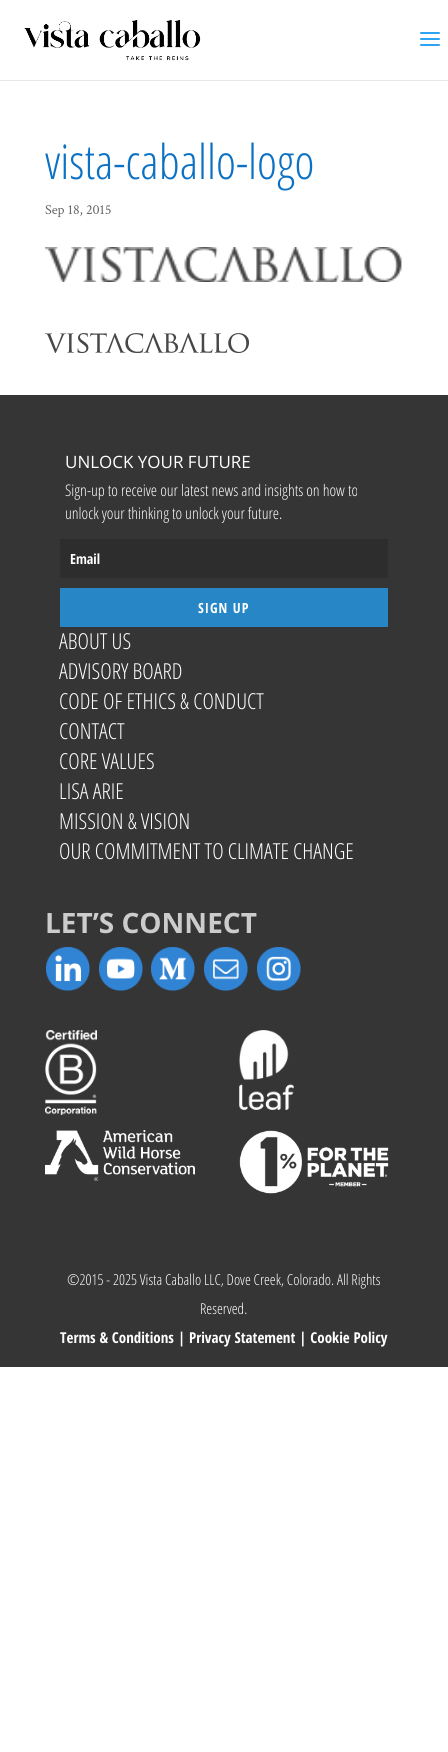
import math
import cairo

surface = cairo.ImageSurface(cairo.FORMAT_RGB24, 448, 1752)
ctx = cairo.Context(surface)
options = cairo.FontOptions()
options.set_hint_metrics(cairo.HINT_METRICS_OFF)
options.set_hint_style(cairo.HINT_STYLE_NONE)
ctx.set_font_options(options)
ctx.set_miter_limit(4)


def set_color(code):
    ctx.set_source_rgb(*(v / 255 for v in bytes.fromhex(code[-6:])))


def draw_text(x, y, s, family, size, color, bold=False, italic=False):
    ctx.select_font_face(family, cairo.FONT_SLANT_ITALIC if italic else cairo.FONT_SLANT_NORMAL, cairo.FONT_WEIGHT_BOLD if bold else cairo.FONT_WEIGHT_NORMAL)
    ctx.set_font_size(size)
    set_color(color)
    ctx.move_to(x, y)
    ctx.show_text(s)


def draw_spaced(x, y, s, letter, word):
    ctx.move_to(x, y)
    for ch in s:
        ctx.show_text(ch)
        ctx.rel_move_to(letter + word * (ch == ' '), 0)


def fill_rect(x, y, w, h, color):
    set_color(color)
    ctx.rectangle(x, y, w, h)
    ctx.fill()


def draw_image(path, x, y, w, h):
    ctx.save()
    ctx.set_source_surface(cairo.ImageSurface.create_from_png(path), x, y)
    ctx.rectangle(x, y, w, h)
    ctx.fill()
    ctx.restore()


set_color("#ffffff")
ctx.paint()
fill_rect(0, 80, 448, 1, "#e6e6e6")
draw_image("assets/img1.png", 24, 20, 177, 41)
draw_image("assets/img2.png", 420, 32, 20, 14)
draw_text(45, 179, "vista-caballo-logo", "Open Sans Condensed Light", 48, "#0c71c3")
draw_text(45, 214, "Sep 18, 2015", "Crimson Text", 14, "#666666")
draw_image("assets/img3.png", 45, 247, 357, 35)
draw_image("assets/img4.png", 45, 333, 204, 20)
fill_rect(0, 395, 448, 972, "#353535")
draw_text(65, 468, "UNLOCK YOUR FUTURE", "Open Sans", 17, "#ffffff")
draw_text(65, 496, "Sign-up to receive our latest news and insights on how to", "Open Sans Condensed Light", 16, "#ffffff")
draw_text(65, 519, "unlock your thinking to unlock your future.", "Open Sans Condensed Light", 16, "#ffffff")
fill_rect(60, 539, 328, 39, "#2d2d2d")
draw_text(70, 564, "Email", "Open Sans Condensed", 14, "#ffffff", bold=True)
fill_rect(60, 588, 328, 39, "#2787c6")
set_color("#ffffff")
draw_spaced(198, 613, "SIGN UP", 1, 0)
draw_text(59, 649, "ABOUT US", "Open Sans Condensed Light", 22, "#ffffff")
draw_text(59, 679, "ADVISORY BOARD", "Open Sans Condensed Light", 22, "#ffffff")
draw_text(59, 709, "CODE OF ETHICS & CONDUCT", "Open Sans Condensed Light", 22, "#ffffff")
draw_text(59, 739, "CONTACT", "Open Sans Condensed Light", 22, "#ffffff")
draw_text(59, 769, "CORE VALUES", "Open Sans Condensed Light", 22, "#ffffff")
draw_text(59, 799, "LISA ARIE", "Open Sans Condensed Light", 22, "#ffffff")
draw_text(59, 829, "MISSION & VISION", "Open Sans Condensed Light", 22, "#ffffff")
draw_text(59, 859, "OUR COMMITMENT TO CLIMATE CHANGE", "Open Sans Condensed Light", 22, "#ffffff")
draw_text(45, 933, "LET’S CONNECT", "Open Sans", 28, "#cccccc", bold=True)
draw_image("assets/img5.png", 46, 947, 44, 44)
draw_image("assets/img6.png", 99, 947, 44, 44)
draw_image("assets/img7.png", 151, 947, 44, 44)
draw_image("assets/img8.png", 204, 947, 44, 44)
draw_image("assets/img9.png", 257, 947, 44, 44)
draw_image("assets/img10.png", 45, 1030, 52, 85)
draw_image("assets/img11.png", 239, 1030, 55, 80)
draw_image("assets/img12.png", 45, 1130, 150, 51)
draw_image("assets/img13.png", 239, 1130, 150, 64)
draw_text(67, 1285, "©2015 - 2025 Vista Caballo LLC, Dove Creek, Colorado. All Rights", "Open Sans Condensed Light", 15, "#ffffff")
draw_text(200, 1314, "Reserved.", "Open Sans Condensed Light", 15, "#ffffff")
draw_text(60, 1343, "Terms & Conditions | Privacy Statement | Cookie Policy", "Open Sans Condensed", 15, "#ffffff", bold=True)
surface.write_to_png("output.png")
